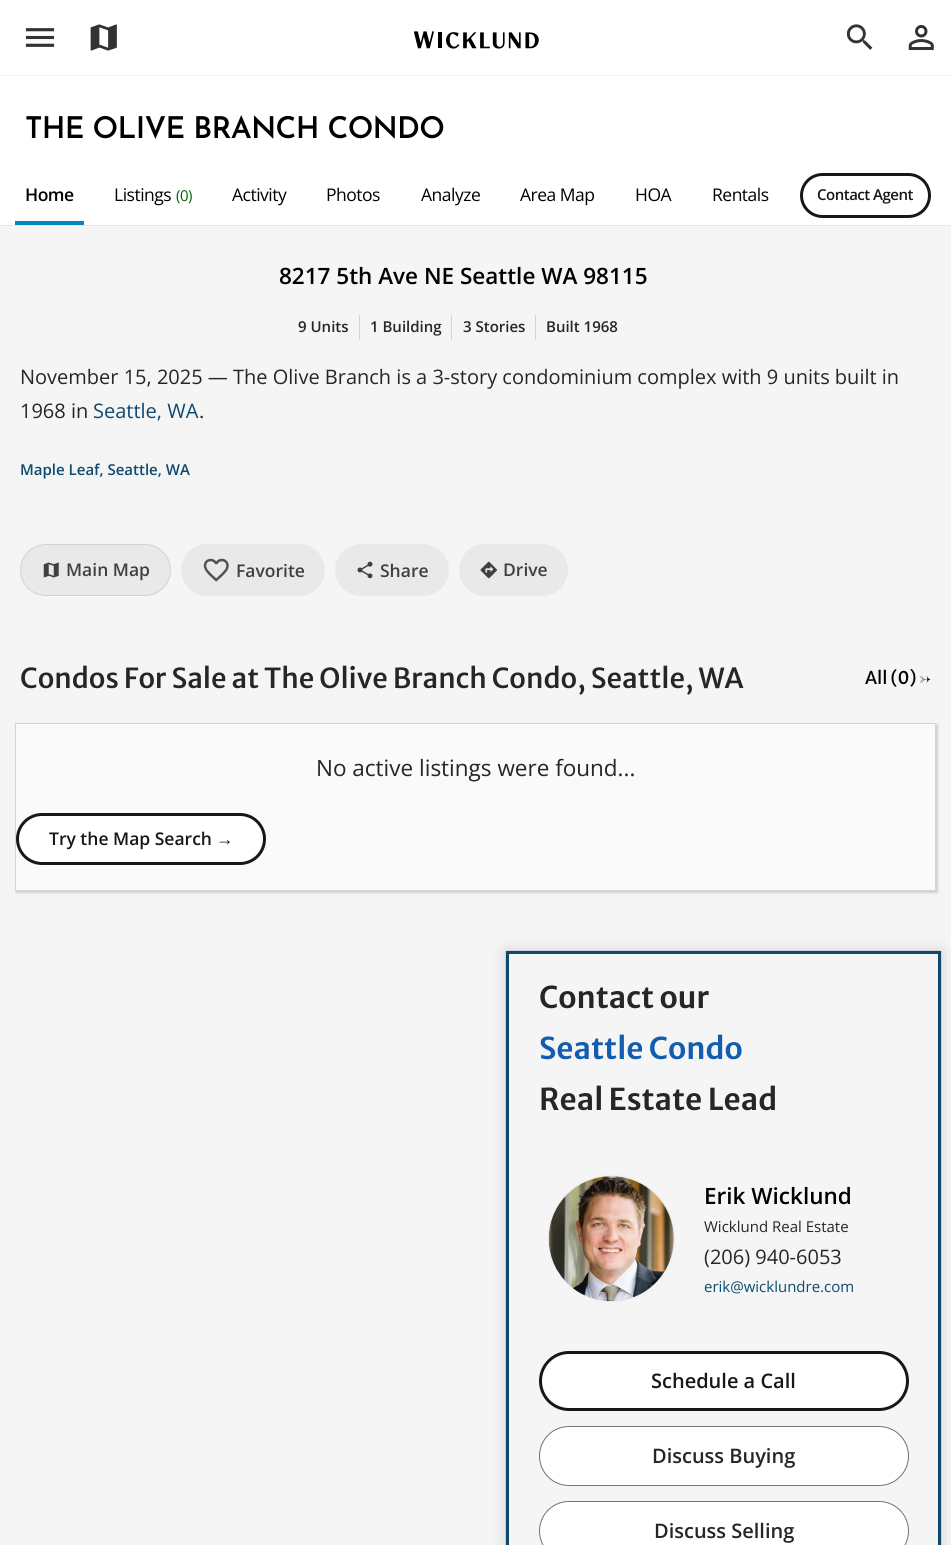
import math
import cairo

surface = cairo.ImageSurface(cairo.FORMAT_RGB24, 951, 1545)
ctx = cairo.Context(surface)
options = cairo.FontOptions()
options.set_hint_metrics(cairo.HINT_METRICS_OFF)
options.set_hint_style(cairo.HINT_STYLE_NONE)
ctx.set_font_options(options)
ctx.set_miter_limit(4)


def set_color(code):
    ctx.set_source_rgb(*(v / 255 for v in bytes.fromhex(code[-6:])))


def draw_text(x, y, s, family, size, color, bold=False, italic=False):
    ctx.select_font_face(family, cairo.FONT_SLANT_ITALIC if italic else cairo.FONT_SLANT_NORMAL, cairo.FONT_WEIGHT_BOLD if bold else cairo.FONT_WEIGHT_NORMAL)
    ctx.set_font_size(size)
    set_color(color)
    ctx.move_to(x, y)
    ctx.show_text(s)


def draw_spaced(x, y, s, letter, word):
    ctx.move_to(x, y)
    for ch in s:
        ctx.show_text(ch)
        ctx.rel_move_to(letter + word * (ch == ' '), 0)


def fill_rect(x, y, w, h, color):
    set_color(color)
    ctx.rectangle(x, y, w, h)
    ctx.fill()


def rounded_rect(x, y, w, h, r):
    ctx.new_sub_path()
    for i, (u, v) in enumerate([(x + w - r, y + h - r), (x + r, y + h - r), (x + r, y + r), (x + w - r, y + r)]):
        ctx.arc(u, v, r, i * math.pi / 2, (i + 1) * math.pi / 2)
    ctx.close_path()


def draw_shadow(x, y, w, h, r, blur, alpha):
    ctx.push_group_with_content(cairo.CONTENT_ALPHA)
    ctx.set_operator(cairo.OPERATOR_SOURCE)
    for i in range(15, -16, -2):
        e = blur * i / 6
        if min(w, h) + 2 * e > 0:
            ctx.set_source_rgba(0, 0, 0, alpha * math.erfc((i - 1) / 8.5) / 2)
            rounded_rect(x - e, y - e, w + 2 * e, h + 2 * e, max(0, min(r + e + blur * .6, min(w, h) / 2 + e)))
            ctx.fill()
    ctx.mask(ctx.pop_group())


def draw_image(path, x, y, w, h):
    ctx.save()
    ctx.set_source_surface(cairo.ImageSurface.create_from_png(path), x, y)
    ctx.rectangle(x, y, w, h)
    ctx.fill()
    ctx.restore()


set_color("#f5f5f5")
ctx.paint()
fill_rect(0, 0, 951, 75, "#ffffff")
draw_image("assets/img1.png", 25, 28, 30, 19)
draw_image("assets/img2.png", 90, 24, 27, 27)
draw_image("assets/img3.png", 414, 31, 125, 18)
draw_image("assets/img4.png", 846, 24, 27, 26)
draw_image("assets/img5.png", 908, 25, 26, 25)
fill_rect(0, 76, 951, 149, "#ffffff")
fill_rect(0, 75, 951, 1, "#f2f2f2")
ctx.select_font_face("Josefin Sans SemiBold")
ctx.set_font_size(30)
set_color("#000000")
draw_spaced(25, 138, "THE OLIVE BRANCH CONDO", -0.75, 0)
fill_rect(0, 225, 951, 1, "#e6e6e6")
fill_rect(15, 221, 69, 4, "#0284c7")
ctx.select_font_face("Open Sans SemiBold")
ctx.set_font_size(17.5)
set_color("#000000")
draw_spaced(25, 201, "Home", -0.5, 0)
ctx.select_font_face("Open Sans")
draw_spaced(114, 201, "Listings", -0.5, 0)
ctx.set_font_size(15)
set_color("#006400")
draw_spaced(176, 201, "(0)", -0.5, 0)
ctx.set_font_size(17.5)
set_color("#000000")
draw_spaced(232, 201, "Activity", -0.5, 0)
draw_spaced(326, 201, "Photos", -0.5, 0)
draw_spaced(421, 201, "Analyze", -0.5, 0)
draw_spaced(520, 201, "Area Map", -0.5, 0)
draw_spaced(635, 201, "HOA", -0.5, 0)
draw_spaced(712, 201, "Rentals", -0.5, 0)
rounded_rect(801.5, 174.5, 128, 42, 21)
set_color("#171717")
ctx.set_line_width(3)
ctx.stroke()
ctx.select_font_face("Open Sans SemiBold")
ctx.set_font_size(15)
draw_spaced(817, 200, "Contact Agent", -0.5, 0)
draw_text(279, 284, "8217 5th Ave NE Seattle WA 98115", "Open Sans SemiBold", 22.5, "#000000")
fill_rect(359, 315, 1, 25, "#d4d4d4")
draw_text(298, 332, "9 Units", "Open Sans SemiBold", 15, "#262626")
fill_rect(451, 315, 1, 25, "#d4d4d4")
draw_text(370, 332, "1 Building", "Open Sans SemiBold", 15, "#262626")
fill_rect(535, 315, 1, 25, "#d4d4d4")
draw_text(463, 332, "3 Stories", "Open Sans SemiBold", 15, "#262626")
draw_text(546, 332, "Built 1968", "Open Sans SemiBold", 15, "#262626")
draw_text(20, 384, "November 15, 2025 — The Olive Branch is a 3-story condominium complex with 9 units built in", "Open Sans", 20, "#262626")
draw_text(20, 418, "1968 in", "Open Sans", 20, "#262626")
draw_text(93, 418, "Seattle, WA", "Open Sans", 20, "#0c4a6e")
draw_text(199, 418, ".", "Open Sans", 20, "#262626")
draw_text(20, 475, "Maple Leaf, Seattle, WA", "Open Sans SemiBold", 15, "#0c4a6e")
set_color("#e9e9e9")
rounded_rect(20, 544, 151, 52, 26)
ctx.fill()
rounded_rect(20.5, 544.5, 150, 51, 25.5)
ctx.set_source_rgba(0, 0, 0, 0.1)
ctx.set_line_width(1)
ctx.stroke()
draw_image("assets/img6.png", 43, 562, 16, 16)
draw_text(66, 576, "Main Map", "Open Sans SemiBold", 17.5, "#404040")
set_color("#e9e9e9")
rounded_rect(181, 544, 144, 52, 26)
ctx.fill()
draw_image("assets/img7.png", 203, 558, 26, 24)
draw_text(236, 577, "Favorite", "Open Sans SemiBold", 17.5, "#404040")
set_color("#e9e9e9")
rounded_rect(335, 544, 114, 52, 26)
ctx.fill()
draw_image("assets/img8.png", 357, 561, 16, 18)
draw_text(380, 577, "Share", "Open Sans SemiBold", 17.5, "#404040")
set_color("#e9e9e9")
rounded_rect(459, 544, 109, 52, 26)
ctx.fill()
draw_image("assets/img9.png", 480, 561, 17, 18)
draw_text(503, 576, "Drive", "Open Sans SemiBold", 17.5, "#404040")
draw_text(20, 688, "Condos For Sale at The Olive Branch Condo, Seattle, WA", "Merriweather Sans Medium", 27.5, "#262626")
draw_text(865, 684, "All (0)", "Merriweather Sans", 17.5, "#000000")
draw_text(919, 684, "→", "Playfair Display", 17.5, "#000000")
set_color("#000000")
draw_shadow(16, 724, 922, 169, 0, 1, 0.15)
set_color("#fafafa")
ctx.rectangle(15.5, 723.5, 920, 167)
ctx.fill_preserve()
set_color("#d4d4d4")
ctx.stroke()
draw_text(316, 776, "No active listings were found...", "Open Sans", 22.5, "#262626")
set_color("#ffffff")
rounded_rect(17.5, 814.5, 247, 49, 24.5)
ctx.fill_preserve()
set_color("#171717")
ctx.set_line_width(3)
ctx.stroke()
draw_text(49, 845, "Try the Map Search", "Open Sans SemiBold", 17.5, "#171717")
draw_text(216, 845, "→", "Liberation Sans", 17.5, "#171717", bold=True)
ctx.save()
ctx.set_fill_rule(cairo.FILL_RULE_EVEN_ODD)
ctx.new_path()
ctx.move_to(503, 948)
ctx.line_to(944, 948)
ctx.line_to(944, 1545)
ctx.line_to(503, 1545)
ctx.close_path()
ctx.move_to(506, 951)
ctx.line_to(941, 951)
ctx.line_to(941, 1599)
ctx.line_to(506, 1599)
ctx.close_path()
ctx.clip()
set_color("#000000")
draw_shadow(506, 951, 435, 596, 0, 0.5, 0.3)
ctx.restore()
ctx.save()
ctx.set_fill_rule(cairo.FILL_RULE_EVEN_ODD)
ctx.new_path()
ctx.move_to(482, 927)
ctx.line_to(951, 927)
ctx.line_to(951, 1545)
ctx.line_to(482, 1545)
ctx.close_path()
ctx.move_to(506, 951)
ctx.line_to(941, 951)
ctx.line_to(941, 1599)
ctx.line_to(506, 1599)
ctx.close_path()
ctx.clip()
set_color("#000000")
draw_shadow(506, 951, 435, 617, 0, 7.5, 0.15)
ctx.restore()
ctx.rectangle(507.5, 952.5, 432, 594)
set_color("#0c4a6e")
ctx.stroke()
draw_text(539, 1008, "Contact our", "Merriweather Sans SemiBold", 30, "#262626")
draw_text(539, 1059, "Seattle Condo", "Merriweather Sans SemiBold", 30, "#115daf")
draw_text(539, 1110, "Real Estate Lead", "Merriweather Sans SemiBold", 30, "#262626")
set_color("#000000")
draw_shadow(549, 1176, 125, 125, 62.5, 1, 0.1)
draw_image("assets/img10.png", 548, 1176, 126, 126)
draw_text(704, 1204, "Erik Wicklund", "Open Sans SemiBold", 22.5, "#000000")
draw_text(704, 1232, "Wicklund Real Estate", "Open Sans", 15, "#262626")
draw_text(704, 1264, "(206) 940-6053", "Open Sans", 20, "#262626")
draw_text(704, 1292, "erik@wicklundre.com", "Open Sans", 15, "#0c4a6e")
set_color("#ffffff")
rounded_rect(540.5, 1352.5, 367, 57, 28.5)
ctx.fill_preserve()
set_color("#171717")
ctx.stroke()
draw_text(651, 1388, "Schedule a Call", "Open Sans SemiBold", 20, "#171717")
set_color("#ffffff")
rounded_rect(539.5, 1426.5, 369, 59, 29.5)
ctx.fill_preserve()
set_color("#737373")
ctx.set_line_width(1)
ctx.stroke()
draw_text(652, 1463, "Discuss Buying", "Open Sans SemiBold", 20, "#262626")
set_color("#ffffff")
rounded_rect(539.5, 1501.5, 369, 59, 29.5)
ctx.fill_preserve()
set_color("#737373")
ctx.stroke()
draw_text(654, 1538, "Discuss Selling", "Open Sans SemiBold", 20, "#262626")
surface.write_to_png("output.png")
